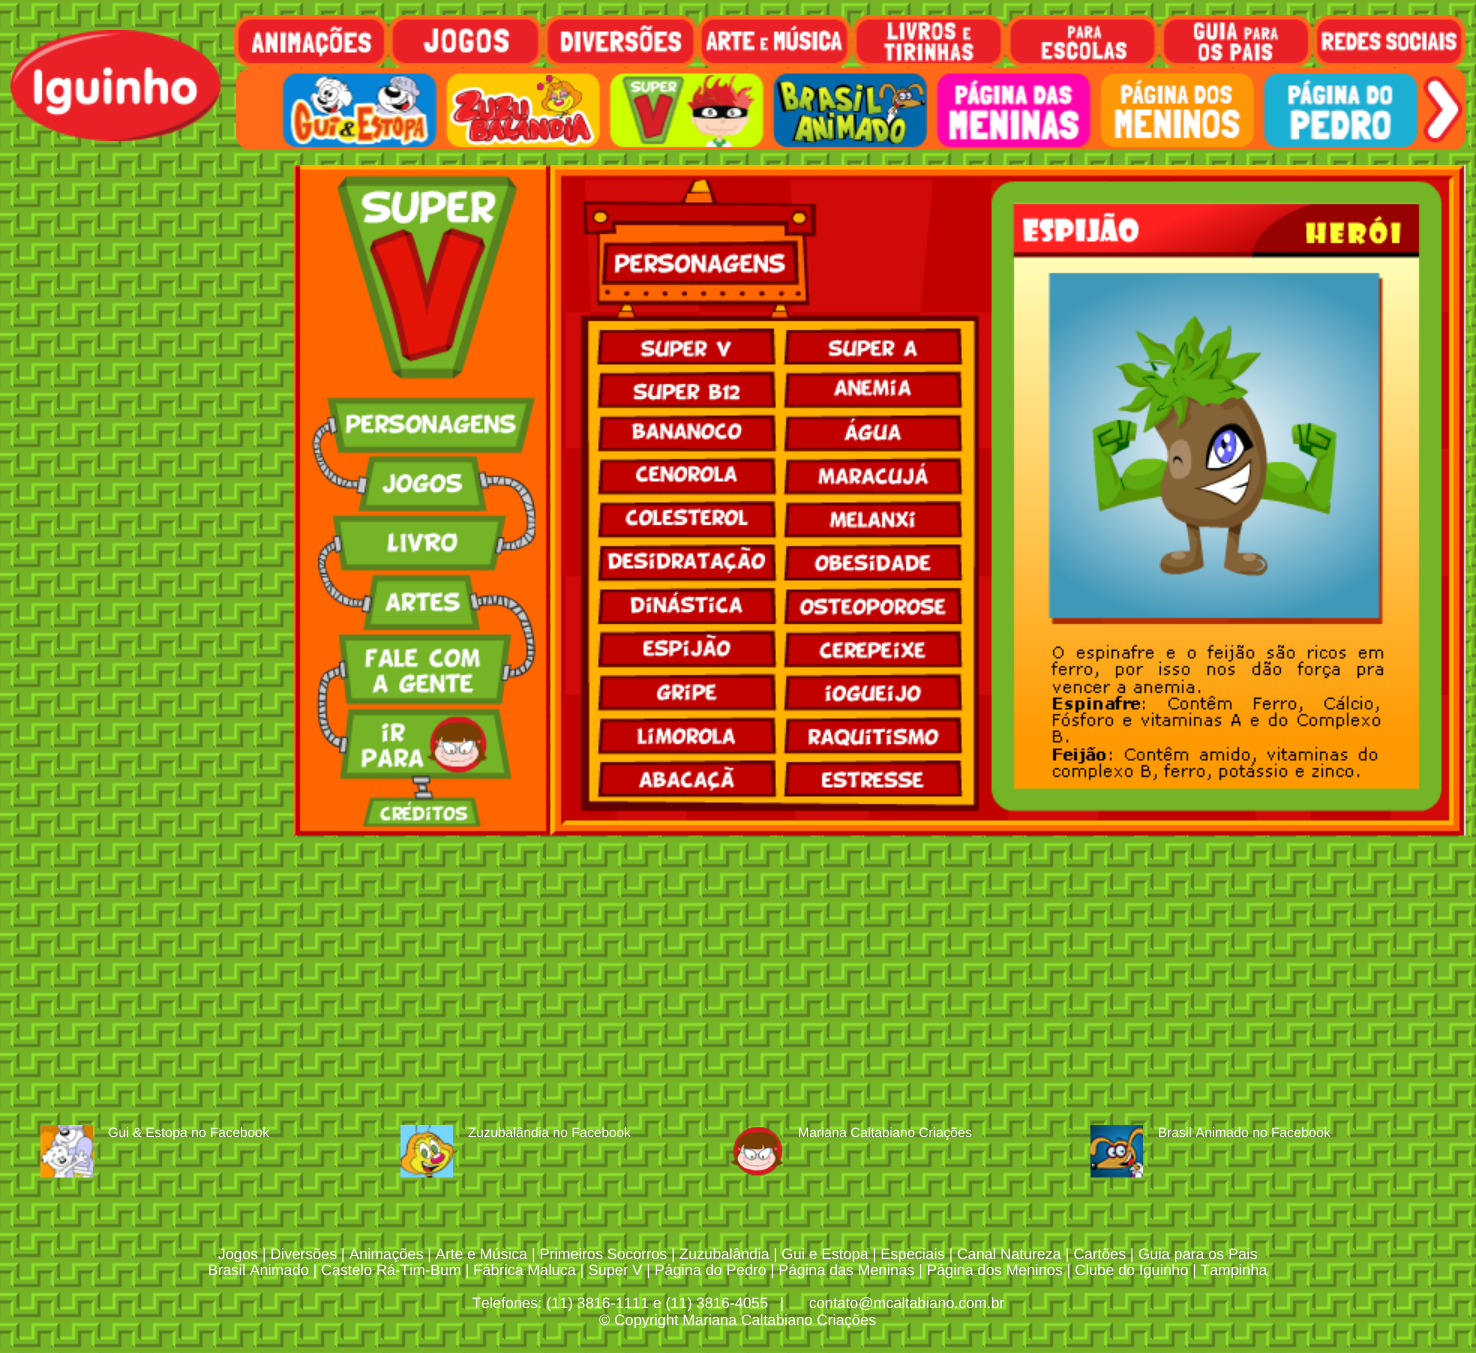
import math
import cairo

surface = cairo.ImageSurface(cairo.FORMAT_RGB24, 1476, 1353)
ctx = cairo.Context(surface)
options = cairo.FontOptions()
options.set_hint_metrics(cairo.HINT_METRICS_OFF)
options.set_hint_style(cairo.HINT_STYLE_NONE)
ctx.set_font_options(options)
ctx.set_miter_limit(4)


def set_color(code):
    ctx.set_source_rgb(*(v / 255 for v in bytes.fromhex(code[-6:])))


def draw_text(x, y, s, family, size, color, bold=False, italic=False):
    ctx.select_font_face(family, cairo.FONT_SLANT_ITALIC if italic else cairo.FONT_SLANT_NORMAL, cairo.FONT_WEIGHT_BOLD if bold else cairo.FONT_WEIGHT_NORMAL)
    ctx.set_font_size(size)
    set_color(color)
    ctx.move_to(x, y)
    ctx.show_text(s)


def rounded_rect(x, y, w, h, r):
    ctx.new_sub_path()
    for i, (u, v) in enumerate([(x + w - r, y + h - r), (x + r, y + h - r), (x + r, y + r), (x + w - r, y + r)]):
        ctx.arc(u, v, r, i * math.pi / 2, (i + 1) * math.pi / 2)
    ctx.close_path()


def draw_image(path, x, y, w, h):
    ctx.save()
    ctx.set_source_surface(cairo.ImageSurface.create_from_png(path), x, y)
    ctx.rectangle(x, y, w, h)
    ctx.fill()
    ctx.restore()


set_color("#ffffff")
ctx.paint()
draw_image("assets/img1.png", 0, 0, 1476, 1353)
draw_image("assets/img2.png", 10, 30, 211, 111)
draw_image("assets/img3.png", 234, 15, 155, 53)
draw_image("assets/img4.png", 388, 15, 155, 53)
draw_image("assets/img5.png", 543, 15, 155, 53)
draw_image("assets/img6.png", 697, 15, 155, 53)
draw_image("assets/img7.png", 852, 15, 153, 53)
draw_image("assets/img8.png", 1005, 15, 155, 53)
draw_image("assets/img9.png", 1159, 15, 154, 53)
draw_image("assets/img10.png", 1312, 15, 154, 53)
set_color("#fe6a19")
rounded_rect(236, 68, 1230, 82, 15)
ctx.fill()
draw_image("assets/img11.png", 281, 73, 157, 75)
draw_image("assets/img12.png", 445, 73, 156, 75)
draw_image("assets/img13.png", 608, 73, 157, 75)
draw_image("assets/img14.png", 772, 73, 156, 75)
draw_image("assets/img15.png", 935, 73, 157, 75)
draw_image("assets/img16.png", 1099, 73, 156, 75)
draw_image("assets/img17.png", 1262, 73, 157, 75)
draw_image("assets/img18.png", 1423, 67, 43, 83)
draw_image("assets/img19.png", 294, 165, 257, 671)
draw_image("assets/img20.png", 550, 165, 916, 671)
draw_image("assets/img21.png", 40, 1125, 53, 53)
draw_text(108, 1137, "Gui & Estopa no Facebook", "Liberation Sans", 13.5, "#ffffff")
draw_image("assets/img22.png", 400, 1125, 53, 53)
draw_text(468, 1137, "Zuzubalândia no Facebook", "Liberation Sans", 13.5, "#ffffff")
draw_image("assets/img23.png", 730, 1126, 53, 51)
draw_text(798, 1137, "Mariana Caltabiano Criações", "Liberation Sans", 13.5, "#ffffff")
draw_image("assets/img24.png", 1090, 1125, 53, 53)
draw_text(1158, 1137, "Brasil Animado no Facebook", "Liberation Sans", 13.5, "#ffffff")
draw_text(218, 1259, "Jogos | Diversões | Animações | Arte e Música | Primeiros Socorros | Zuzubalândia | Gui e Estopa | Especiais | Canal Natureza | Cartões | Guia para os Pais", "Liberation Sans", 15, "#ffffff")
draw_text(208, 1275, "Brasil Animado | Castelo Rá-Tim-Bum | Fábrica Maluca | Super V | Página do Pedro | Página das Meninas | Página dos Meninos | Clube do Iguinho | Tampinha", "Liberation Sans", 15, "#ffffff")
draw_text(472, 1308, "Telefones: (11) 3816-1111 e (11) 3816-4055", "Liberation Sans", 15, "#ffffff")
draw_text(780, 1308, "|", "Liberation Sans", 15, "#ffffff")
draw_text(809, 1308, "contato@mcaltabiano.com.br", "Liberation Sans", 15, "#ffffff")
draw_text(599, 1325, "© Copyright Mariana Caltabiano Criações", "Liberation Sans", 15, "#ffffff")
surface.write_to_png("output.png")
